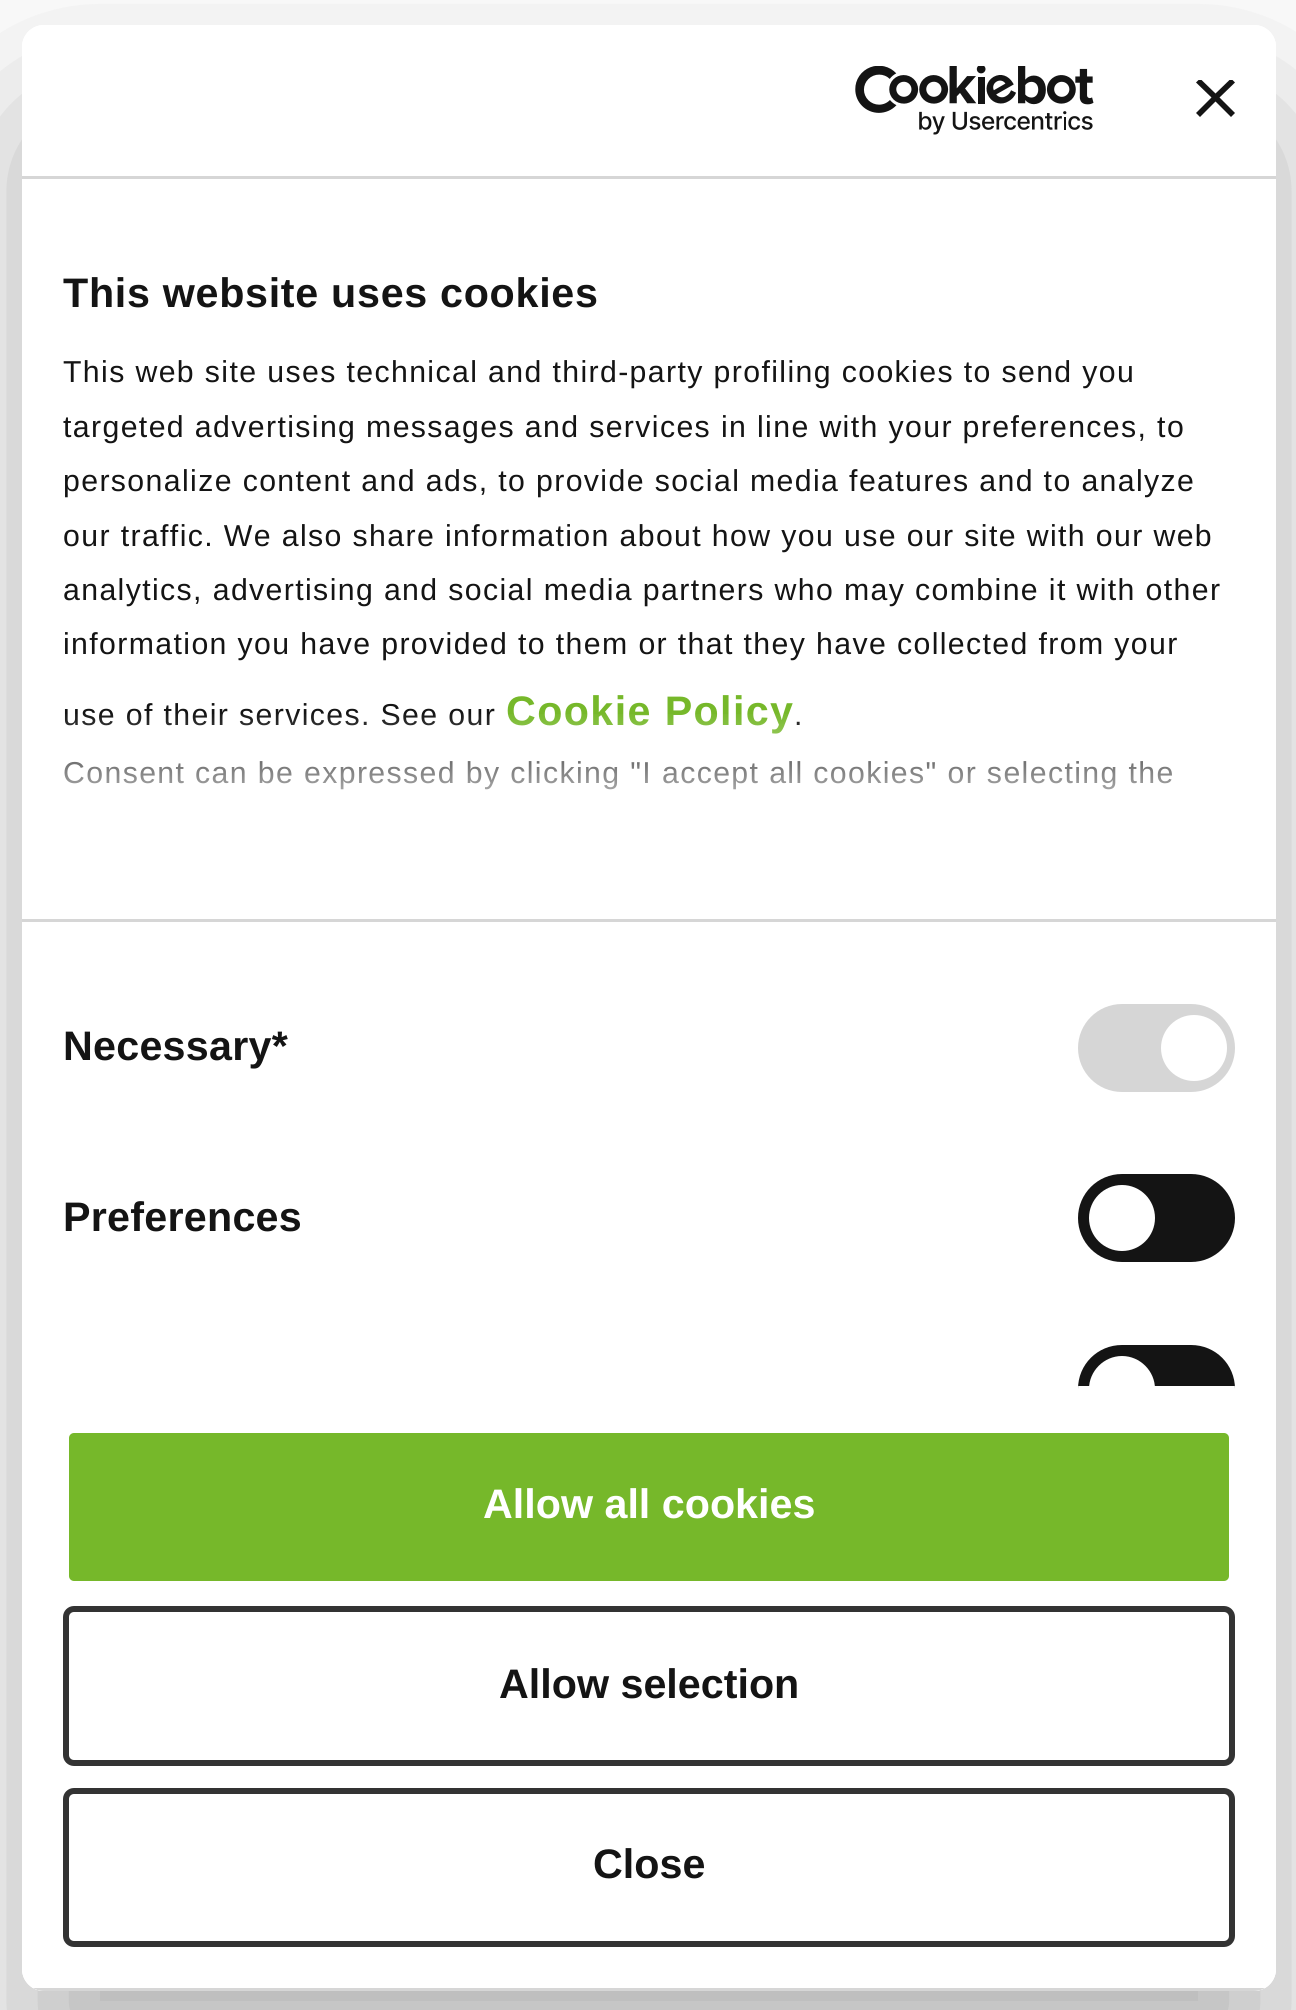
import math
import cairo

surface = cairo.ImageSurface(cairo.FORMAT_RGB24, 1296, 2010)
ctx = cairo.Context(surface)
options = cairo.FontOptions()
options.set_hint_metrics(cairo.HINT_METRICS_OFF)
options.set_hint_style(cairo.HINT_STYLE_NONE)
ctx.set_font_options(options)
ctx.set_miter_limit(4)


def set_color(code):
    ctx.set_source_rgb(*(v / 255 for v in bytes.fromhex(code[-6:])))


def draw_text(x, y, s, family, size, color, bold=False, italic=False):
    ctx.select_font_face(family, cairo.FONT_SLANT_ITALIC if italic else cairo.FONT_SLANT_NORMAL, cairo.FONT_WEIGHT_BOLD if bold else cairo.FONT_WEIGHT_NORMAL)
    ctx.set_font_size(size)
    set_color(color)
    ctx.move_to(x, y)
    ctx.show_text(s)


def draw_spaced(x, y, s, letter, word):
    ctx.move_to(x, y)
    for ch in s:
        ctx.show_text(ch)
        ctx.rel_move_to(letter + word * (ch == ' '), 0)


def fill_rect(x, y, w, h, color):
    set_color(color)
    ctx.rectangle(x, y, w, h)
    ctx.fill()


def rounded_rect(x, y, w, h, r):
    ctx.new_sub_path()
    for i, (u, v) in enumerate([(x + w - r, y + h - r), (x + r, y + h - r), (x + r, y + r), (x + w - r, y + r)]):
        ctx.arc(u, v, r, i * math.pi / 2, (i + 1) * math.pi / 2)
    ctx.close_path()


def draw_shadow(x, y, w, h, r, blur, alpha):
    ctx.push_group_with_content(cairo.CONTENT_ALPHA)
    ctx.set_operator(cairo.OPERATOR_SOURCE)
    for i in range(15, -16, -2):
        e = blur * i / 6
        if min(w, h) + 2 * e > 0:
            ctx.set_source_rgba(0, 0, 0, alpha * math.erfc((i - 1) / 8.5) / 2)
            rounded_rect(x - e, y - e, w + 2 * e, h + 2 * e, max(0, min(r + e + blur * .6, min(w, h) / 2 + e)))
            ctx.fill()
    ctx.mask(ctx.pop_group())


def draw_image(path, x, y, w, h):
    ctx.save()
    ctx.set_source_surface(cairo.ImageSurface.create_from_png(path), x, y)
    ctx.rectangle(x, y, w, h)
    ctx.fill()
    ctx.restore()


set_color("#ffffff")
ctx.paint()
ctx.save()
ctx.set_fill_rule(cairo.FILL_RULE_EVEN_ODD)
ctx.new_path()
ctx.move_to(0, 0)
ctx.line_to(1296, 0)
ctx.line_to(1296, 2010)
ctx.line_to(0, 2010)
ctx.close_path()
ctx.move_to(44, 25)
ctx.line_to(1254, 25)
ctx.curve_to(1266, 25, 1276, 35, 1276, 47)
ctx.line_to(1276, 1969)
ctx.curve_to(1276, 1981, 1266, 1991, 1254, 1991)
ctx.line_to(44, 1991)
ctx.curve_to(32, 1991, 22, 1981, 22, 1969)
ctx.line_to(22, 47)
ctx.curve_to(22, 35, 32, 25, 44, 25)
ctx.close_path()
ctx.clip()
set_color("#000000")
draw_shadow(22, 113, 1254, 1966, 22, 93.5, 0.3)
ctx.restore()
set_color("#ffffff")
rounded_rect(22, 25, 1254, 1966, 22)
ctx.fill()
fill_rect(22, 176, 1254, 3, "#d6d6d6")
draw_image("assets/img1.png", 855, 66, 239, 69)
ctx.save()
ctx.rectangle(1196, 80, 39, 38)
ctx.clip()
set_color("#141414")
ctx.new_path()
ctx.move_to(1235, 82.5)
ctx.line_to(1231, 78.5)
ctx.line_to(1215.5, 93.5)
ctx.line_to(1200, 78.5)
ctx.line_to(1196, 82.5)
ctx.line_to(1211.5, 97.5)
ctx.line_to(1196, 113)
ctx.line_to(1200, 117)
ctx.line_to(1215.5, 101.5)
ctx.line_to(1231, 117)
ctx.line_to(1235, 113)
ctx.line_to(1219.5, 97.5)
ctx.close_path()
ctx.fill()
ctx.restore()
fill_rect(22, 919, 1254, 3, "#d6d6d6")
ctx.select_font_face("Liberation Sans", cairo.FONT_SLANT_NORMAL, cairo.FONT_WEIGHT_BOLD)
ctx.set_font_size(41.25)
set_color("#141414")
draw_spaced(63, 307, "This website uses cookies", 0.7, 0)
ctx.select_font_face("Liberation Sans")
ctx.set_font_size(30.25)
draw_spaced(63, 382, "This web site uses technical and third-party profiling cookies to send you", 1.38, 0)
draw_spaced(63, 437, "targeted advertising messages and services in line with your preferences, to", 1.38, 0)
draw_spaced(63, 491, "personalize content and ads, to provide social media features and to analyze", 1.38, 0)
draw_spaced(63, 546, "our traffic. We also share information about how you use our site with our web", 1.38, 0)
draw_spaced(63, 600, "analytics, advertising and social media partners who may combine it with other", 1.38, 0)
draw_spaced(63, 654, "information you have provided to them or that they have collected from your", 1.38, 0)
draw_spaced(63, 725, "use of their services. See our", 1.38, 0)
ctx.select_font_face("Liberation Sans", cairo.FONT_SLANT_NORMAL, cairo.FONT_WEIGHT_BOLD)
ctx.set_font_size(41.25)
set_color("#76b82a")
draw_spaced(506, 725, "Cookie Policy", 1.38, 0)
ctx.select_font_face("Liberation Sans")
ctx.set_font_size(30.25)
set_color("#141414")
draw_spaced(794, 725, ".", 1.38, 0)
draw_spaced(63, 783, "Consent can be expressed by clicking \"I accept all cookies\" or selecting the", 1.38, 0)
gradient = cairo.LinearGradient(631, 917, 631, 711)
gradient.add_color_stop_rgba(0, 1, 1, 1, 1)
gradient.add_color_stop_rgba(0.5, 1, 1, 1, 0.8)
gradient.add_color_stop_rgba(1, 1, 1, 1, 0)
ctx.set_source(gradient)
ctx.rectangle(64, 714, 1108, 76)
ctx.fill()
ctx.select_font_face("Liberation Sans", cairo.FONT_SLANT_NORMAL, cairo.FONT_WEIGHT_BOLD)
ctx.set_font_size(41.25)
set_color("#141414")
draw_spaced(63, 1060, "Necessary*", 0.25, 0)
set_color("#d6d6d6")
rounded_rect(1078, 1004, 157, 88, 44)
ctx.fill()
set_color("#ffffff")
ctx.arc(1194, 1048, 33, 0, 2 * math.pi)
ctx.fill()
set_color("#141414")
draw_spaced(63, 1231, "Preferences", 0.25, 0)
rounded_rect(1078, 1174, 157, 88, 44)
ctx.fill()
set_color("#ffffff")
ctx.arc(1122, 1218, 33, 0, 2 * math.pi)
ctx.fill()
set_color("#141414")
ctx.new_path()
ctx.move_to(1122, 1345)
ctx.line_to(1191, 1345)
ctx.curve_to(1215.5, 1345, 1235, 1364.5, 1235, 1389)
ctx.line_to(1235, 1386)
ctx.line_to(1078, 1386)
ctx.line_to(1078, 1389)
ctx.curve_to(1078, 1364.5, 1097.5, 1345, 1122, 1345)
ctx.close_path()
ctx.fill()
set_color("#ffffff")
ctx.new_path()
ctx.move_to(1122, 1356)
ctx.curve_to(1140, 1356, 1155, 1371, 1155, 1389)
ctx.line_to(1155, 1386)
ctx.line_to(1089, 1386)
ctx.line_to(1089, 1389)
ctx.curve_to(1089, 1371, 1104, 1356, 1122, 1356)
ctx.close_path()
ctx.fill()
ctx.save()
rounded_rect(22, 25, 1254, 1966, 22)
ctx.clip()
fill_rect(33, 1988, 1232, 3, "#d6d6d6")
ctx.restore()
set_color("#76b82a")
rounded_rect(66, 1430, 1166, 154, 8)
ctx.fill_preserve()
set_color("#ffffff")
ctx.set_line_width(6)
ctx.stroke()
draw_text(483, 1518, "Allow all cookies", "Liberation Sans", 41.25, "#ffffff", bold=True)
rounded_rect(66, 1609, 1166, 154, 8)
set_color("#333333")
ctx.stroke()
draw_text(499, 1698, "Allow selection", "Liberation Sans", 41.25, "#141414", bold=True)
rounded_rect(66, 1791, 1166, 153, 8)
set_color("#333333")
ctx.stroke()
draw_text(593, 1878, "Close", "Liberation Sans", 41.25, "#141414", bold=True)
surface.write_to_png("output.png")
